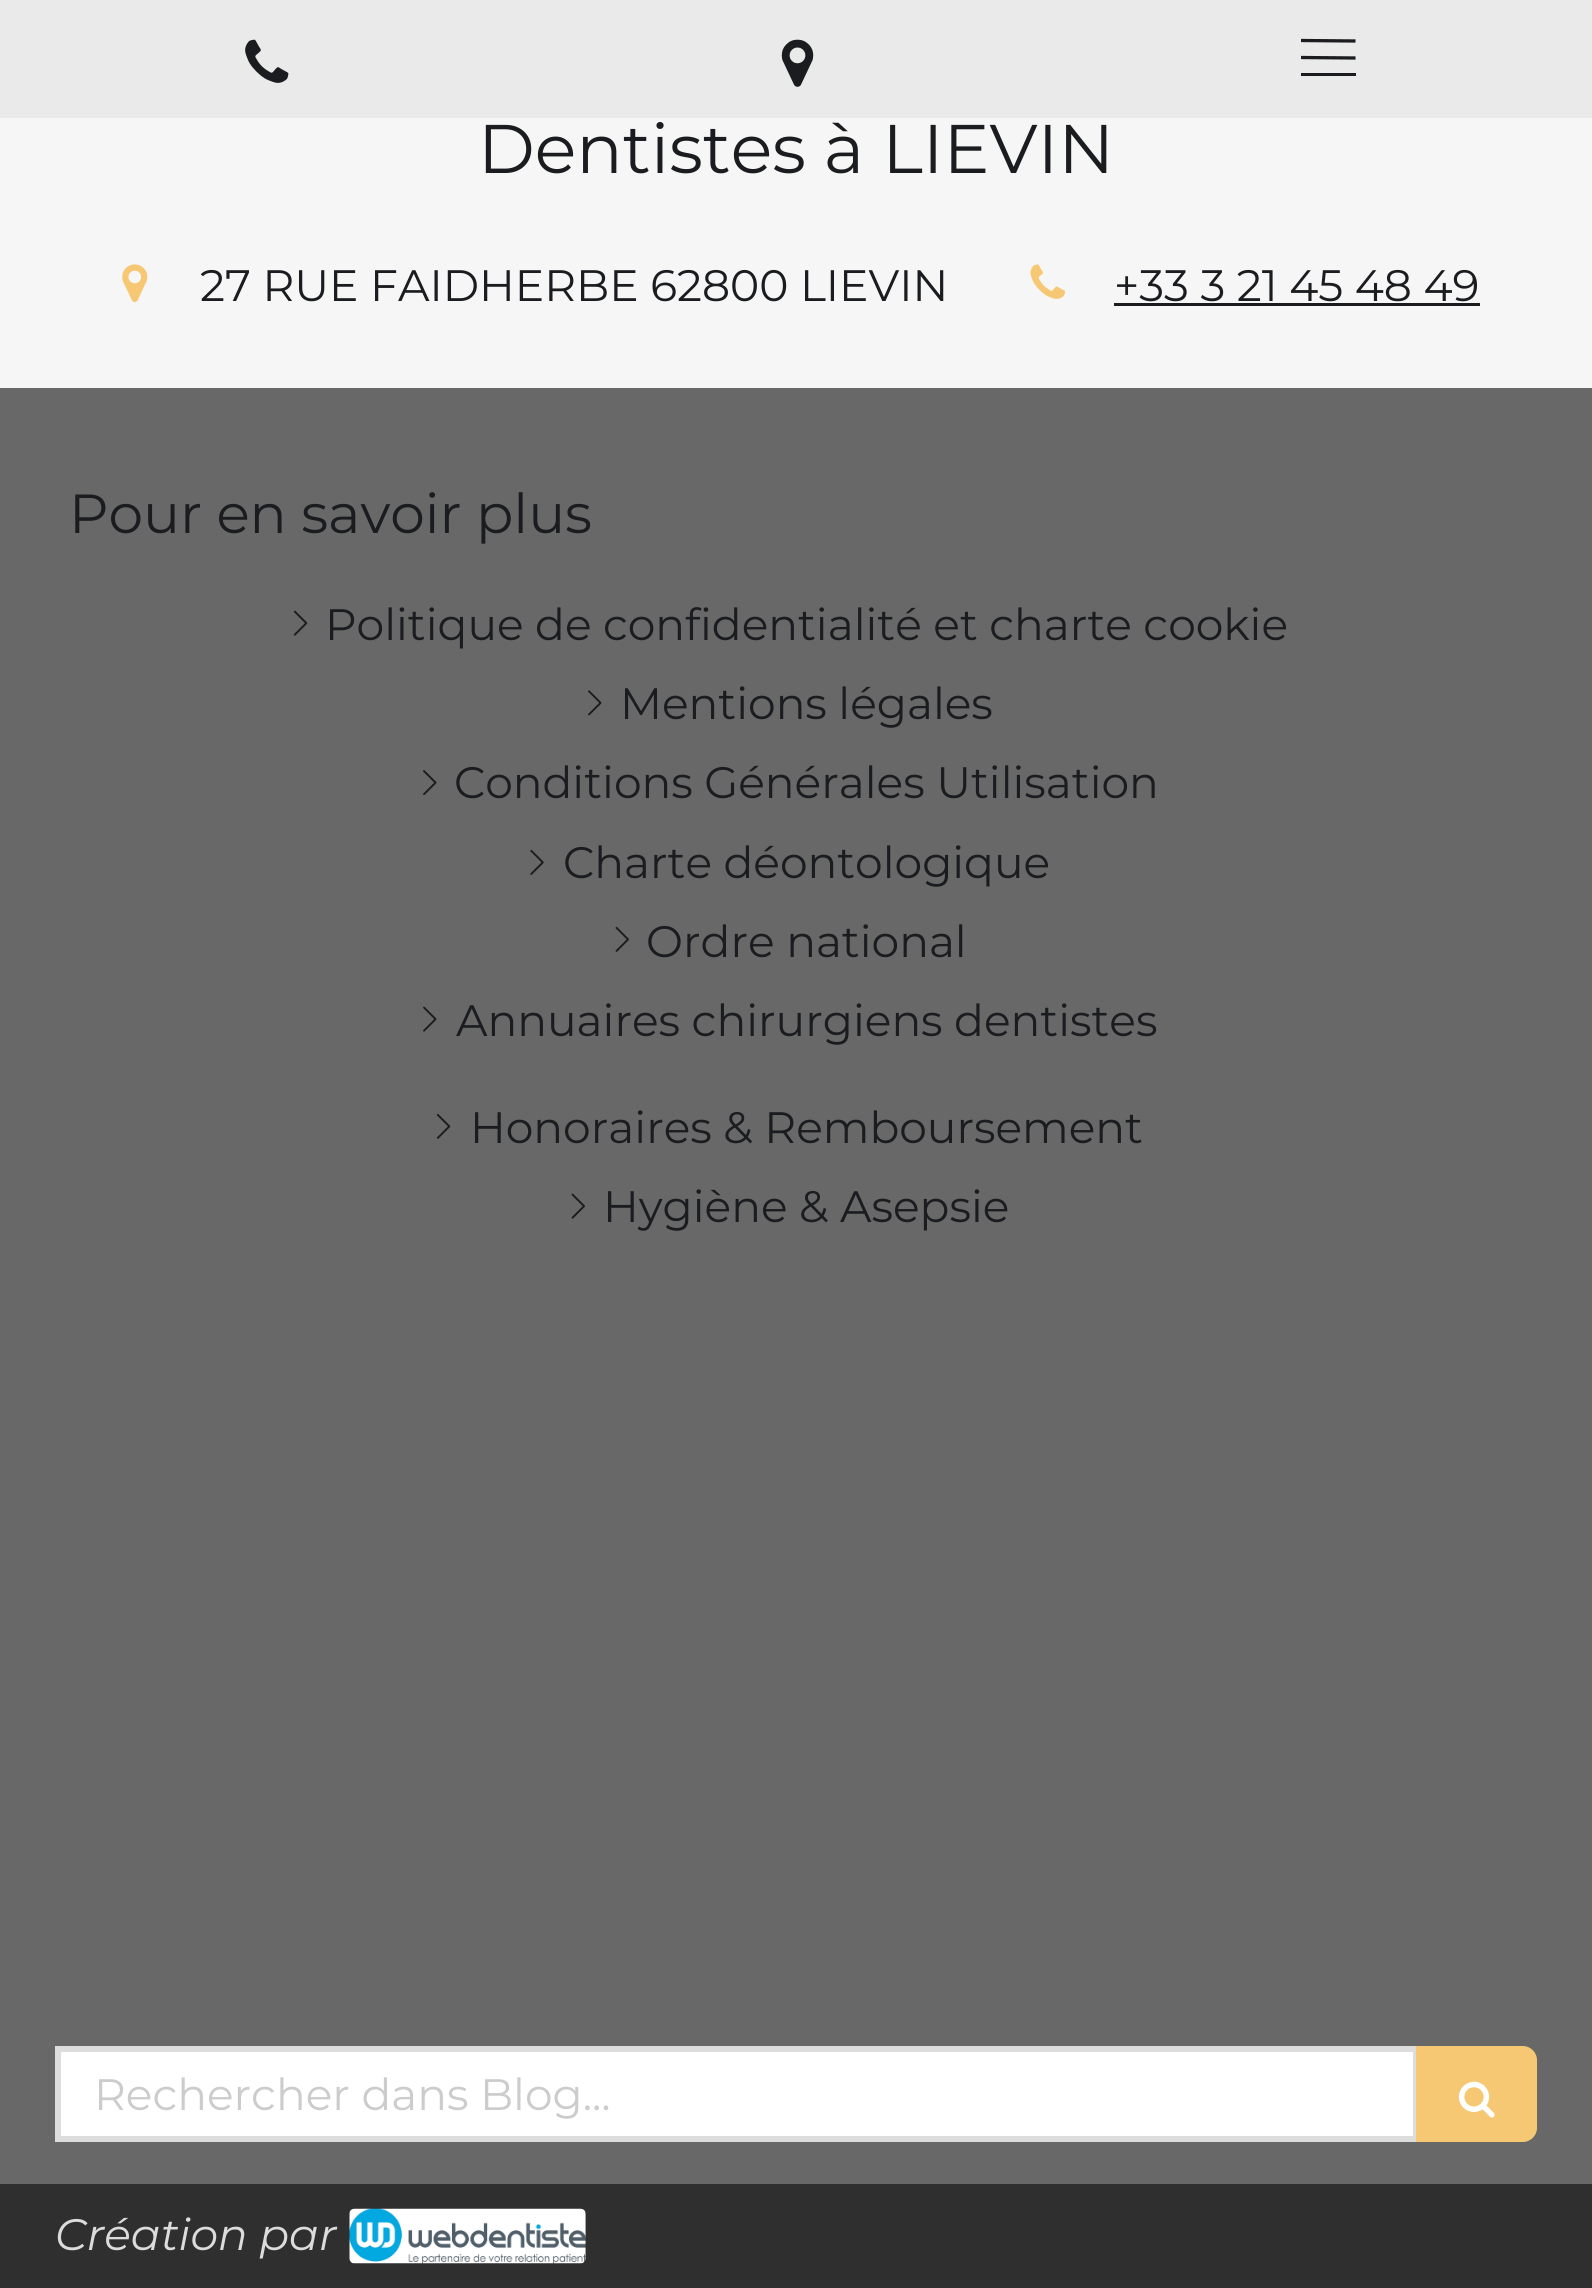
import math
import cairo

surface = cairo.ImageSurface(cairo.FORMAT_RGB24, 1592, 2288)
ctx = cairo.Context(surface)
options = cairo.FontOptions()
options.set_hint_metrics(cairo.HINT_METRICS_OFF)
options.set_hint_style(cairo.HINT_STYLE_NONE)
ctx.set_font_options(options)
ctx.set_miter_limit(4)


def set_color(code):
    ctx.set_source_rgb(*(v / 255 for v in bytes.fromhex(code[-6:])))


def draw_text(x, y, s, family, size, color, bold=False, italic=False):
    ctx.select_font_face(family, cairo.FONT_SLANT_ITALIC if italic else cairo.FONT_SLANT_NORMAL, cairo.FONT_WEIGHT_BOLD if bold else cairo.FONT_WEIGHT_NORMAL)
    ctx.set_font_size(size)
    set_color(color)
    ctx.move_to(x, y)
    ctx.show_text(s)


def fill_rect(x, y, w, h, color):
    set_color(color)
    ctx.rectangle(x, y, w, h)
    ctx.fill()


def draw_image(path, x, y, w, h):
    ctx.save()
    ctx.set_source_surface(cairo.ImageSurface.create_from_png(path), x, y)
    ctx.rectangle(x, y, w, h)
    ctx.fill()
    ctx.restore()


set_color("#2f2f2f")
ctx.paint()
fill_rect(0, 0, 1592, 118, "#eaeaea")
draw_image("assets/img1.png", 245, 39, 44, 44)
draw_image("assets/img2.png", 781, 39, 33, 48)
ctx.new_path()
ctx.move_to(1301, 57.5)
ctx.line_to(1355.5, 58)
ctx.move_to(1301, 40.5)
ctx.line_to(1355.5, 41)
set_color("#1a1c20")
ctx.set_line_width(3.3)
ctx.stroke()
fill_rect(1301, 73, 55, 3, "#1a1c20")
fill_rect(0, 118, 1592, 270, "#f6f6f6")
draw_text(478, 173, "Dentistes à LIEVIN", "Montserrat", 68.75, "#1a1c20")
draw_image("assets/img3.png", 122, 264, 26, 39)
draw_text(200, 301, "27 RUE FAIDHERBE 62800 LIEVIN", "Montserrat", 44, "#1a1c20")
draw_image("assets/img4.png", 1030, 264, 35, 35)
draw_text(1114, 301, "+33 3 21 45 48 49", "Montserrat", 44, "#1a1c20")
fill_rect(1114, 303, 366, 3, "#1a1c20")
fill_rect(0, 388, 1592, 1796, "#696868")
draw_text(69, 533, "Pour en savoir plus", "Montserrat", 55, "#1a1c20")
draw_image("assets/img5.png", 293, 610, 15, 26)
draw_text(325, 640, "Politique de confidentialité et charte cookie", "Montserrat", 44, "#1a1c20")
draw_image("assets/img6.png", 588, 690, 14, 26)
draw_text(620, 719, "Mentions légales", "Montserrat", 44, "#1a1c20")
draw_image("assets/img7.png", 423, 770, 14, 25)
draw_text(454, 798, "Conditions Générales Utilisation", "Montserrat", 44, "#1a1c20")
draw_image("assets/img8.png", 530, 849, 14, 26)
draw_text(563, 878, "Charte déontologique", "Montserrat", 44, "#1a1c20")
draw_image("assets/img9.png", 615, 926, 14, 26)
draw_text(646, 957, "Ordre national", "Montserrat", 44, "#1a1c20")
draw_image("assets/img10.png", 423, 1006, 14, 26)
draw_text(456, 1036, "Annuaires chirurgiens dentistes", "Montserrat", 44, "#1a1c20")
draw_image("assets/img11.png", 436, 1114, 15, 25)
draw_text(470, 1143, "Honoraires & Remboursement", "Montserrat", 44, "#1a1c20")
draw_image("assets/img12.png", 571, 1193, 14, 26)
draw_text(603, 1222, "Hygiène & Asepsie", "Montserrat", 44, "#1a1c20")
set_color("#ffffff")
ctx.rectangle(58, 2049, 1358, 90)
ctx.fill_preserve()
set_color("#dddddd")
ctx.set_line_width(6)
ctx.stroke()
draw_text(94, 2110, "Rechercher dans Blog...", "Montserrat", 44, "#cccccc")
set_color("#f7c873")
ctx.new_path()
ctx.move_to(1416, 2046)
ctx.line_to(1523, 2046)
ctx.curve_to(1530.5, 2046, 1537, 2052.5, 1537, 2060)
ctx.line_to(1537, 2128)
ctx.curve_to(1537, 2135.5, 1530.5, 2142, 1523, 2142)
ctx.line_to(1416, 2142)
ctx.close_path()
ctx.fill()
draw_image("assets/img13.png", 1458, 2081, 37, 37)
draw_text(55, 2250, "Création par", "Montserrat", 44, "#dcdcdc", italic=True)
draw_image("assets/img14.png", 349, 2208, 237, 56)
surface.write_to_png("output.png")
